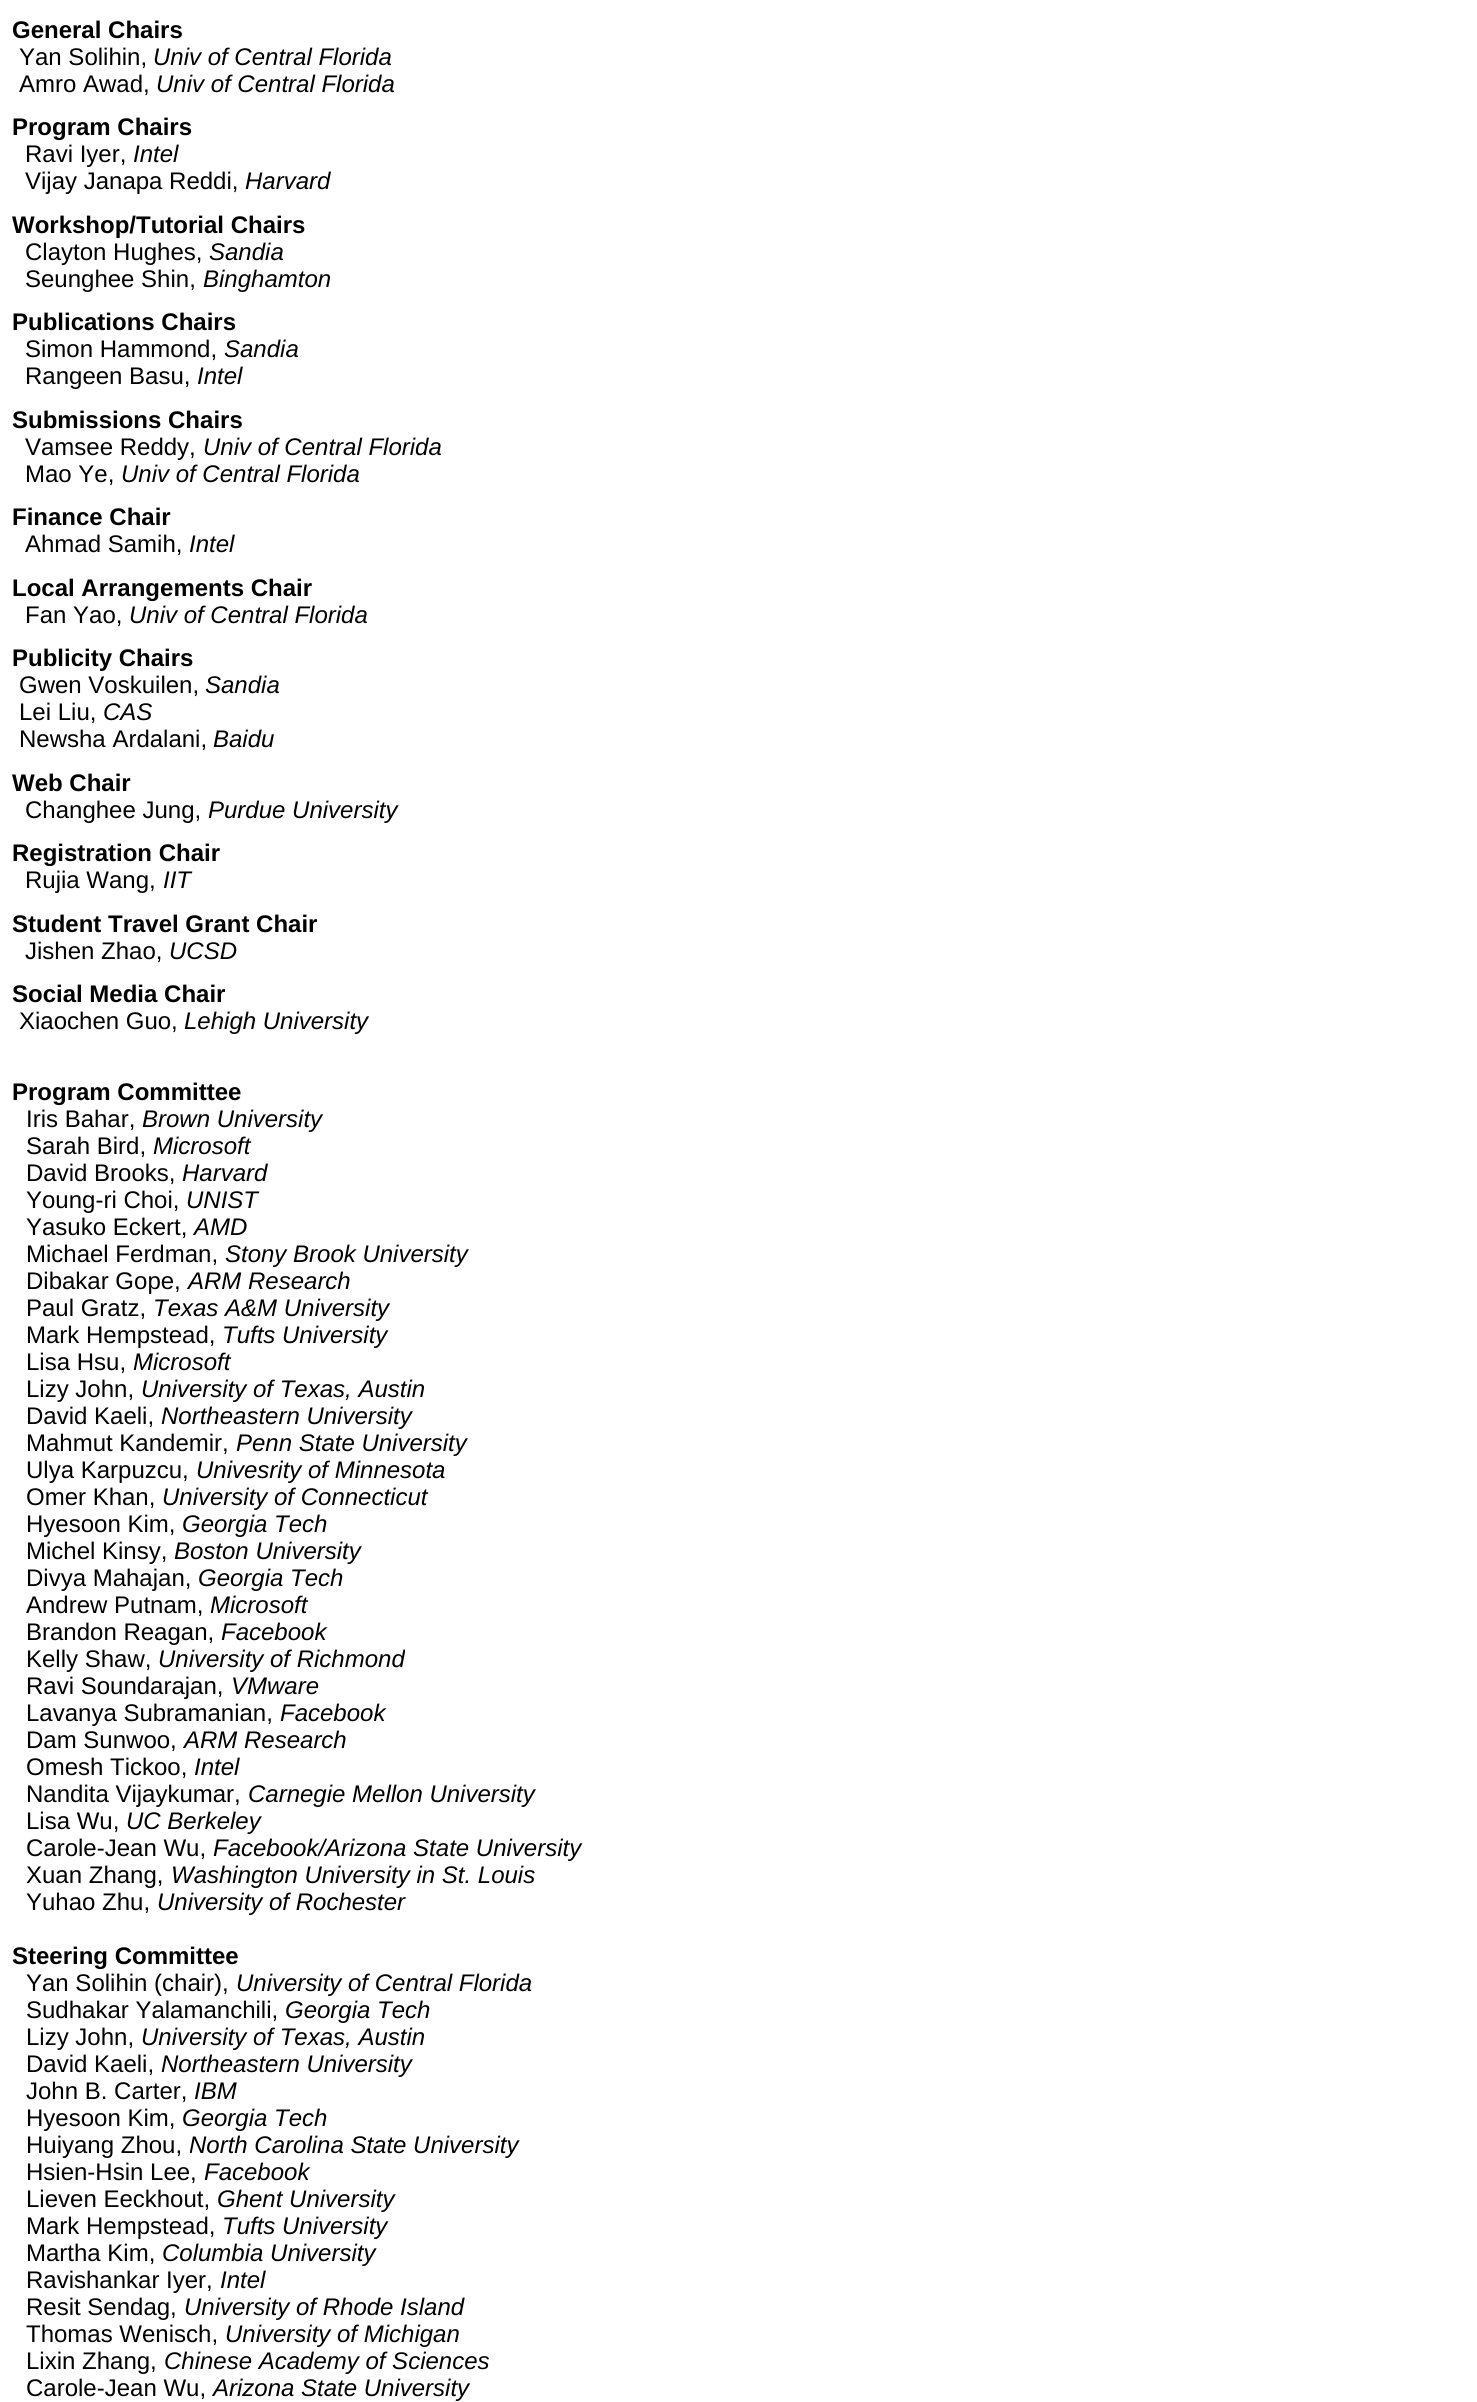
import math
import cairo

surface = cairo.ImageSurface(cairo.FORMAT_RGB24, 1477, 2402)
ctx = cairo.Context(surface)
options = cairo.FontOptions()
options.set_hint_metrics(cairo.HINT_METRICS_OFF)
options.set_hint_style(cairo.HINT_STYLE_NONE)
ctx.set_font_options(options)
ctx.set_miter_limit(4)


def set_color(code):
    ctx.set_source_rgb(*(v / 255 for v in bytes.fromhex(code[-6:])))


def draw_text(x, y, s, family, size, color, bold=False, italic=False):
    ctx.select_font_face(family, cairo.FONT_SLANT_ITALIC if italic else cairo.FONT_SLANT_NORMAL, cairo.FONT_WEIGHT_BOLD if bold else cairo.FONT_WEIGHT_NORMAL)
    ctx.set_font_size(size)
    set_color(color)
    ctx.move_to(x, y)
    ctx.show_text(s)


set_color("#ffffff")
ctx.paint()
draw_text(12, 38, "General Chairs", "Liberation Sans", 24, "#000000", bold=True)
draw_text(19, 65, "Yan Solihin,", "Liberation Sans", 24, "#000000")
draw_text(153, 65, "Univ of Central Florida", "Liberation Sans", 24, "#000000", italic=True)
draw_text(19, 92, "Amro Awad,", "Liberation Sans", 24, "#000000")
draw_text(156, 92, "Univ of Central Florida", "Liberation Sans", 24, "#000000", italic=True)
draw_text(12, 135, "Program Chairs", "Liberation Sans", 24, "#000000", bold=True)
draw_text(25, 162, "Ravi Iyer,", "Liberation Sans", 24, "#000000")
draw_text(133, 162, "Intel", "Liberation Sans", 24, "#000000", italic=True)
draw_text(25, 189, "Vijay Janapa Reddi,", "Liberation Sans", 24, "#000000")
draw_text(245, 189, "Harvard", "Liberation Sans", 24, "#000000", italic=True)
draw_text(12, 233, "Workshop/Tutorial Chairs", "Liberation Sans", 24, "#000000", bold=True)
draw_text(25, 260, "Clayton Hughes,", "Liberation Sans", 24, "#000000")
draw_text(209, 260, "Sandia", "Liberation Sans", 24, "#000000", italic=True)
draw_text(25, 287, "Seunghee Shin,", "Liberation Sans", 24, "#000000")
draw_text(203, 287, "Binghamton", "Liberation Sans", 24, "#000000", italic=True)
draw_text(12, 330, "Publications Chairs", "Liberation Sans", 24, "#000000", bold=True)
draw_text(25, 357, "Simon Hammond,", "Liberation Sans", 24, "#000000")
draw_text(224, 357, "Sandia", "Liberation Sans", 24, "#000000", italic=True)
draw_text(25, 384, "Rangeen Basu,", "Liberation Sans", 24, "#000000")
draw_text(197, 384, "Intel", "Liberation Sans", 24, "#000000", italic=True)
draw_text(12, 428, "Submissions Chairs", "Liberation Sans", 24, "#000000", bold=True)
draw_text(25, 455, "Vamsee Reddy,", "Liberation Sans", 24, "#000000")
draw_text(203, 455, "Univ of Central Florida", "Liberation Sans", 24, "#000000", italic=True)
draw_text(25, 482, "Mao Ye,", "Liberation Sans", 24, "#000000")
draw_text(121, 482, "Univ of Central Florida", "Liberation Sans", 24, "#000000", italic=True)
draw_text(12, 525, "Finance Chair", "Liberation Sans", 24, "#000000", bold=True)
draw_text(25, 552, "Ahmad Samih,", "Liberation Sans", 24, "#000000")
draw_text(189, 552, "Intel", "Liberation Sans", 24, "#000000", italic=True)
draw_text(12, 596, "Local Arrangements Chair", "Liberation Sans", 24, "#000000", bold=True)
draw_text(25, 623, "Fan Yao,", "Liberation Sans", 24, "#000000")
draw_text(129, 623, "Univ of Central Florida", "Liberation Sans", 24, "#000000", italic=True)
draw_text(12, 666, "Publicity Chairs", "Liberation Sans", 24, "#000000", bold=True)
draw_text(19, 693, "Gwen Voskuilen,", "Liberation Sans", 24, "#000000")
draw_text(205, 693, "Sandia", "Liberation Sans", 24, "#000000", italic=True)
draw_text(19, 720, "Lei Liu,", "Liberation Sans", 24, "#000000")
draw_text(103, 720, "CAS", "Liberation Sans", 24, "#000000", italic=True)
draw_text(19, 747, "Newsha Ardalani,", "Liberation Sans", 24, "#000000")
draw_text(213, 747, "Baidu", "Liberation Sans", 24, "#000000", italic=True)
draw_text(12, 791, "Web Chair", "Liberation Sans", 24, "#000000", bold=True)
draw_text(25, 818, "Changhee Jung,", "Liberation Sans", 24, "#000000")
draw_text(208, 818, "Purdue University", "Liberation Sans", 24, "#000000", italic=True)
draw_text(12, 861, "Registration Chair", "Liberation Sans", 24, "#000000", bold=True)
draw_text(25, 888, "Rujia Wang,", "Liberation Sans", 24, "#000000")
draw_text(163, 888, "IIT", "Liberation Sans", 24, "#000000", italic=True)
draw_text(12, 932, "Student Travel Grant Chair", "Liberation Sans", 24, "#000000", bold=True)
draw_text(25, 959, "Jishen Zhao,", "Liberation Sans", 24, "#000000")
draw_text(169, 959, "UCSD", "Liberation Sans", 24, "#000000", italic=True)
draw_text(12, 1002, "Social Media Chair", "Liberation Sans", 24, "#000000", bold=True)
draw_text(19, 1029, "Xiaochen Guo,", "Liberation Sans", 24, "#000000")
draw_text(184, 1029, "Lehigh University", "Liberation Sans", 24, "#000000", italic=True)
draw_text(12, 1100, "Program Committee", "Liberation Sans", 24, "#000000", bold=True)
draw_text(26, 1127, "Iris Bahar,", "Liberation Sans", 24, "#000000")
draw_text(142, 1127, "Brown University", "Liberation Sans", 24, "#000000", italic=True)
draw_text(26, 1154, "Sarah Bird,", "Liberation Sans", 24, "#000000")
draw_text(153, 1154, "Microsoft", "Liberation Sans", 24, "#000000", italic=True)
draw_text(26, 1181, "David Brooks,", "Liberation Sans", 24, "#000000")
draw_text(182, 1181, "Harvard", "Liberation Sans", 24, "#000000", italic=True)
draw_text(26, 1208, "Young-ri Choi,", "Liberation Sans", 24, "#000000")
draw_text(186, 1208, "UNIST", "Liberation Sans", 24, "#000000", italic=True)
draw_text(26, 1235, "Yasuko Eckert,", "Liberation Sans", 24, "#000000")
draw_text(194, 1235, "AMD", "Liberation Sans", 24, "#000000", italic=True)
draw_text(26, 1262, "Michael Ferdman,", "Liberation Sans", 24, "#000000")
draw_text(225, 1262, "Stony Brook University", "Liberation Sans", 24, "#000000", italic=True)
draw_text(26, 1289, "Dibakar Gope,", "Liberation Sans", 24, "#000000")
draw_text(188, 1289, "ARM Research", "Liberation Sans", 24, "#000000", italic=True)
draw_text(26, 1316, "Paul Gratz,", "Liberation Sans", 24, "#000000")
draw_text(153, 1316, "Texas A&M University", "Liberation Sans", 24, "#000000", italic=True)
draw_text(26, 1343, "Mark Hempstead,", "Liberation Sans", 24, "#000000")
draw_text(222, 1343, "Tufts University", "Liberation Sans", 24, "#000000", italic=True)
draw_text(26, 1370, "Lisa Hsu,", "Liberation Sans", 24, "#000000")
draw_text(133, 1370, "Microsoft", "Liberation Sans", 24, "#000000", italic=True)
draw_text(26, 1397, "Lizy John,", "Liberation Sans", 24, "#000000")
draw_text(141, 1397, "University of Texas, Austin", "Liberation Sans", 24, "#000000", italic=True)
draw_text(26, 1424, "David Kaeli,", "Liberation Sans", 24, "#000000")
draw_text(161, 1424, "Northeastern University", "Liberation Sans", 24, "#000000", italic=True)
draw_text(26, 1451, "Mahmut Kandemir,", "Liberation Sans", 24, "#000000")
draw_text(236, 1451, "Penn State University", "Liberation Sans", 24, "#000000", italic=True)
draw_text(26, 1478, "Ulya Karpuzcu,", "Liberation Sans", 24, "#000000")
draw_text(196, 1478, "Univesrity of Minnesota", "Liberation Sans", 24, "#000000", italic=True)
draw_text(26, 1505, "Omer Khan,", "Liberation Sans", 24, "#000000")
draw_text(162, 1505, "University of Connecticut", "Liberation Sans", 24, "#000000", italic=True)
draw_text(26, 1532, "Hyesoon Kim,", "Liberation Sans", 24, "#000000")
draw_text(182, 1532, "Georgia Tech", "Liberation Sans", 24, "#000000", italic=True)
draw_text(26, 1559, "Michel Kinsy,", "Liberation Sans", 24, "#000000")
draw_text(174, 1559, "Boston University", "Liberation Sans", 24, "#000000", italic=True)
draw_text(26, 1586, "Divya Mahajan,", "Liberation Sans", 24, "#000000")
draw_text(198, 1586, "Georgia Tech", "Liberation Sans", 24, "#000000", italic=True)
draw_text(26, 1613, "Andrew Putnam,", "Liberation Sans", 24, "#000000")
draw_text(210, 1613, "Microsoft", "Liberation Sans", 24, "#000000", italic=True)
draw_text(26, 1640, "Brandon Reagan,", "Liberation Sans", 24, "#000000")
draw_text(221, 1640, "Facebook", "Liberation Sans", 24, "#000000", italic=True)
draw_text(26, 1667, "Kelly Shaw,", "Liberation Sans", 24, "#000000")
draw_text(158, 1667, "University of Richmond", "Liberation Sans", 24, "#000000", italic=True)
draw_text(26, 1694, "Ravi Soundarajan,", "Liberation Sans", 24, "#000000")
draw_text(231, 1694, "VMware", "Liberation Sans", 24, "#000000", italic=True)
draw_text(26, 1721, "Lavanya Subramanian,", "Liberation Sans", 24, "#000000")
draw_text(280, 1721, "Facebook", "Liberation Sans", 24, "#000000", italic=True)
draw_text(26, 1748, "Dam Sunwoo,", "Liberation Sans", 24, "#000000")
draw_text(184, 1748, "ARM Research", "Liberation Sans", 24, "#000000", italic=True)
draw_text(26, 1775, "Omesh Tickoo,", "Liberation Sans", 24, "#000000")
draw_text(194, 1775, "Intel", "Liberation Sans", 24, "#000000", italic=True)
draw_text(26, 1802, "Nandita Vijaykumar,", "Liberation Sans", 24, "#000000")
draw_text(248, 1802, "Carnegie Mellon University", "Liberation Sans", 24, "#000000", italic=True)
draw_text(26, 1829, "Lisa Wu,", "Liberation Sans", 24, "#000000")
draw_text(126, 1829, "UC Berkeley", "Liberation Sans", 24, "#000000", italic=True)
draw_text(26, 1856, "Carole-Jean Wu,", "Liberation Sans", 24, "#000000")
draw_text(213, 1856, "Facebook/Arizona State University", "Liberation Sans", 24, "#000000", italic=True)
draw_text(26, 1883, "Xuan Zhang,", "Liberation Sans", 24, "#000000")
draw_text(171, 1883, "Washington University in St. Louis", "Liberation Sans", 24, "#000000", italic=True)
draw_text(26, 1910, "Yuhao Zhu,", "Liberation Sans", 24, "#000000")
draw_text(157, 1910, "University of Rochester", "Liberation Sans", 24, "#000000", italic=True)
draw_text(12, 1964, "Steering Committee", "Liberation Sans", 24, "#000000", bold=True)
draw_text(26, 1991, "Yan Solihin (chair),", "Liberation Sans", 24, "#000000")
draw_text(236, 1991, "University of Central Florida", "Liberation Sans", 24, "#000000", italic=True)
draw_text(26, 2018, "Sudhakar Yalamanchili,", "Liberation Sans", 24, "#000000")
draw_text(285, 2018, "Georgia Tech", "Liberation Sans", 24, "#000000", italic=True)
draw_text(26, 2045, "Lizy John,", "Liberation Sans", 24, "#000000")
draw_text(141, 2045, "University of Texas, Austin", "Liberation Sans", 24, "#000000", italic=True)
draw_text(26, 2072, "David Kaeli,", "Liberation Sans", 24, "#000000")
draw_text(161, 2072, "Northeastern University", "Liberation Sans", 24, "#000000", italic=True)
draw_text(26, 2099, "John B. Carter,", "Liberation Sans", 24, "#000000")
draw_text(194, 2099, "IBM", "Liberation Sans", 24, "#000000", italic=True)
draw_text(26, 2126, "Hyesoon Kim,", "Liberation Sans", 24, "#000000")
draw_text(182, 2126, "Georgia Tech", "Liberation Sans", 24, "#000000", italic=True)
draw_text(26, 2153, "Huiyang Zhou,", "Liberation Sans", 24, "#000000")
draw_text(189, 2153, "North Carolina State University", "Liberation Sans", 24, "#000000", italic=True)
draw_text(26, 2180, "Hsien-Hsin Lee,", "Liberation Sans", 24, "#000000")
draw_text(204, 2180, "Facebook", "Liberation Sans", 24, "#000000", italic=True)
draw_text(26, 2207, "Lieven Eeckhout,", "Liberation Sans", 24, "#000000")
draw_text(217, 2207, "Ghent University", "Liberation Sans", 24, "#000000", italic=True)
draw_text(26, 2234, "Mark Hempstead,", "Liberation Sans", 24, "#000000")
draw_text(222, 2234, "Tufts University", "Liberation Sans", 24, "#000000", italic=True)
draw_text(26, 2261, "Martha Kim,", "Liberation Sans", 24, "#000000")
draw_text(162, 2261, "Columbia University", "Liberation Sans", 24, "#000000", italic=True)
draw_text(26, 2288, "Ravishankar Iyer,", "Liberation Sans", 24, "#000000")
draw_text(220, 2288, "Intel", "Liberation Sans", 24, "#000000", italic=True)
draw_text(26, 2315, "Resit Sendag,", "Liberation Sans", 24, "#000000")
draw_text(184, 2315, "University of Rhode Island", "Liberation Sans", 24, "#000000", italic=True)
draw_text(26, 2342, "Thomas Wenisch,", "Liberation Sans", 24, "#000000")
draw_text(225, 2342, "University of Michigan", "Liberation Sans", 24, "#000000", italic=True)
draw_text(26, 2369, "Lixin Zhang,", "Liberation Sans", 24, "#000000")
draw_text(164, 2369, "Chinese Academy of Sciences", "Liberation Sans", 24, "#000000", italic=True)
draw_text(26, 2396, "Carole-Jean Wu,", "Liberation Sans", 24, "#000000")
draw_text(213, 2396, "Arizona State University", "Liberation Sans", 24, "#000000", italic=True)
surface.write_to_png("output.png")
